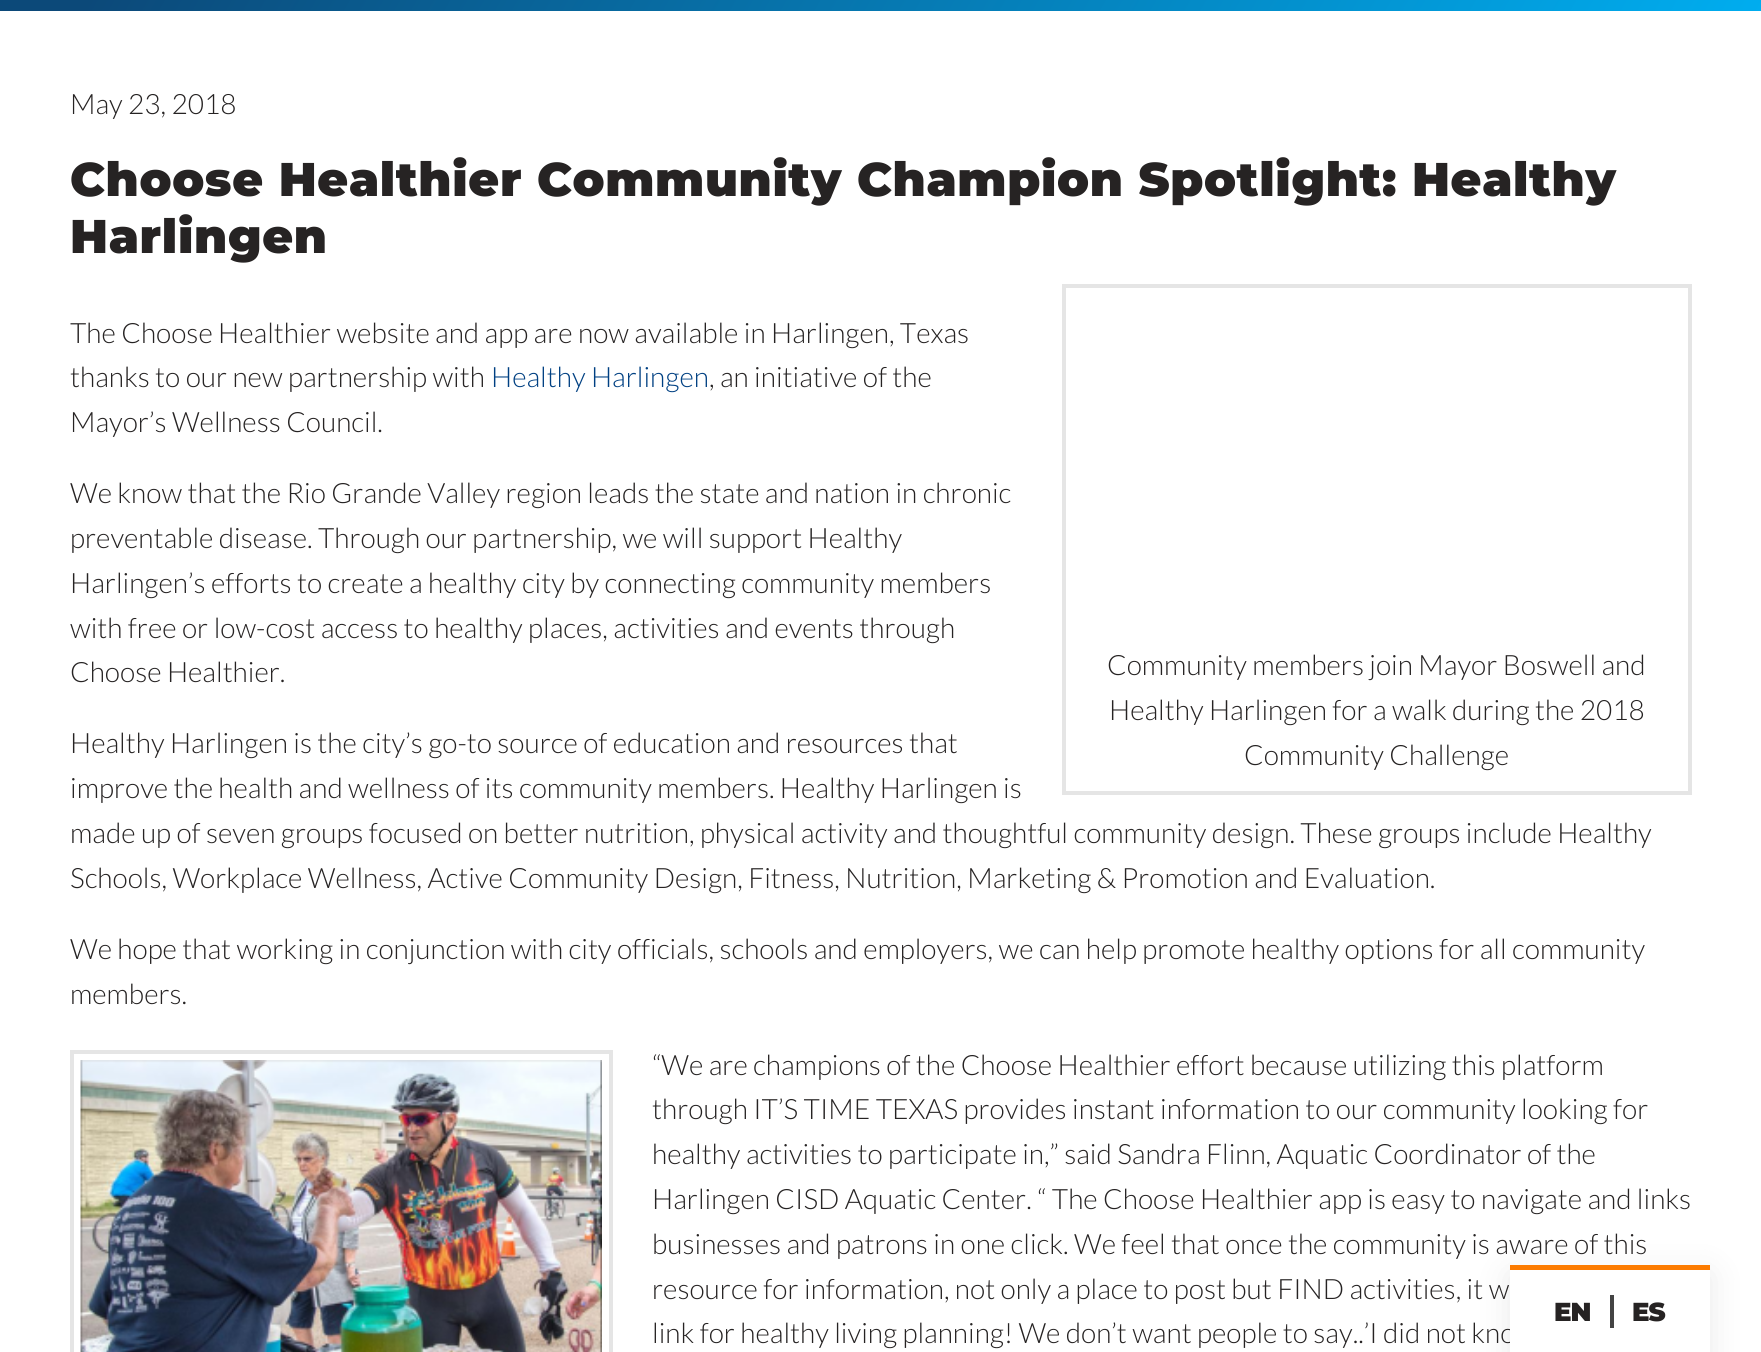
import math
import cairo

surface = cairo.ImageSurface(cairo.FORMAT_RGB24, 1761, 1352)
ctx = cairo.Context(surface)
options = cairo.FontOptions()
options.set_hint_metrics(cairo.HINT_METRICS_OFF)
options.set_hint_style(cairo.HINT_STYLE_NONE)
ctx.set_font_options(options)
ctx.set_miter_limit(4)


def set_color(code):
    ctx.set_source_rgb(*(v / 255 for v in bytes.fromhex(code[-6:])))


def draw_text(x, y, s, family, size, color, bold=False, italic=False):
    ctx.select_font_face(family, cairo.FONT_SLANT_ITALIC if italic else cairo.FONT_SLANT_NORMAL, cairo.FONT_WEIGHT_BOLD if bold else cairo.FONT_WEIGHT_NORMAL)
    ctx.set_font_size(size)
    set_color(color)
    ctx.move_to(x, y)
    ctx.show_text(s)


def draw_spaced(x, y, s, letter, word):
    ctx.move_to(x, y)
    for ch in s:
        ctx.show_text(ch)
        ctx.rel_move_to(letter + word * (ch == ' '), 0)


def fill_rect(x, y, w, h, color):
    set_color(color)
    ctx.rectangle(x, y, w, h)
    ctx.fill()


def rounded_rect(x, y, w, h, r):
    ctx.new_sub_path()
    for i, (u, v) in enumerate([(x + w - r, y + h - r), (x + r, y + h - r), (x + r, y + r), (x + w - r, y + r)]):
        ctx.arc(u, v, r, i * math.pi / 2, (i + 1) * math.pi / 2)
    ctx.close_path()


def draw_shadow(x, y, w, h, r, blur, alpha):
    ctx.push_group_with_content(cairo.CONTENT_ALPHA)
    ctx.set_operator(cairo.OPERATOR_SOURCE)
    for i in range(15, -16, -2):
        e = blur * i / 6
        if min(w, h) + 2 * e > 0:
            ctx.set_source_rgba(0, 0, 0, alpha * math.erfc((i - 1) / 8.5) / 2)
            rounded_rect(x - e, y - e, w + 2 * e, h + 2 * e, max(0, min(r + e + blur * .6, min(w, h) / 2 + e)))
            ctx.fill()
    ctx.mask(ctx.pop_group())


def draw_image(path, x, y, w, h):
    ctx.save()
    ctx.set_source_surface(cairo.ImageSurface.create_from_png(path), x, y)
    ctx.rectangle(x, y, w, h)
    ctx.fill()
    ctx.restore()


set_color("#ffffff")
ctx.paint()
gradient = cairo.LinearGradient(181, -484, 1581, 324)
gradient.add_color_stop_rgba(0.1, 0.047, 0.286, 0.475, 1)
gradient.add_color_stop_rgba(1, 0, 0.678, 0.937, 1)
ctx.set_source(gradient)
ctx.rectangle(0, 0, 1761, 11)
ctx.fill()
draw_text(70, 114, "May 23, 2018", "Lato Light", 28, "#262323")
ctx.select_font_face("Montserrat Black")
ctx.set_font_size(47.25)
draw_spaced(70, 196, "Choose Healthier Community Champion Spotlight: Healthy", 0.7, 0)
draw_spaced(70, 253, "Harlingen", 0.7, 0)
draw_text(70, 343, "The Choose Healthier website and app are now available in Harlingen, Texas", "Lato Light", 28, "#262323")
draw_text(70, 387, "thanks to our new partnership with", "Lato Light", 28, "#262323")
draw_text(491, 387, "Healthy Harlingen", "Lato Light", 28, "#004082")
draw_text(709, 387, ", an initiative of the", "Lato Light", 28, "#262323")
draw_text(70, 432, "Mayor’s Wellness Council.", "Lato Light", 28, "#262323")
draw_text(70, 503, "We know that the Rio Grande Valley region leads the state and nation in chronic", "Lato Light", 28, "#262323")
draw_text(70, 548, "preventable disease. Through our partnership, we will support Healthy", "Lato Light", 28, "#262323")
draw_text(70, 593, "Harlingen’s efforts to create a healthy city by connecting community members", "Lato Light", 28, "#262323")
draw_text(70, 638, "with free or low-cost access to healthy places, activities and events through", "Lato Light", 28, "#262323")
draw_text(70, 682, "Choose Healthier.", "Lato Light", 28, "#262323")
ctx.rectangle(1064, 286, 626, 507)
set_color("#e5e5e5")
ctx.set_line_width(4)
ctx.stroke()
draw_text(1107, 675, "Community members join Mayor Boswell and", "Lato Light", 28, "#262323")
draw_text(1109, 720, "Healthy Harlingen for a walk during the 2018", "Lato Light", 28, "#262323")
draw_text(1244, 765, "Community Challenge", "Lato Light", 28, "#262323")
draw_text(70, 753, "Healthy Harlingen is the city’s go-to source of education and resources that", "Lato Light", 28, "#262323")
draw_text(70, 798, "improve the health and wellness of its community members. Healthy Harlingen is", "Lato Light", 28, "#262323")
draw_text(70, 843, "made up of seven groups focused on better nutrition, physical activity and thoughtful community design. These groups include Healthy", "Lato Light", 28, "#262323")
draw_text(70, 888, "Schools, Workplace Wellness, Active Community Design, Fitness, Nutrition, Marketing & Promotion and Evaluation.", "Lato Light", 28, "#262323")
draw_text(70, 959, "We hope that working in conjunction with city officials, schools and employers, we can help promote healthy options for all community", "Lato Light", 28, "#262323")
draw_text(70, 1004, "members.", "Lato Light", 28, "#262323")
ctx.rectangle(72, 1052, 539, 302)
set_color("#e5e5e5")
ctx.stroke()
draw_image("assets/img1.png", 80, 1060, 522, 292)
draw_text(652, 1075, "“We are champions of the Choose Healthier effort because utilizing this platform", "Lato Light", 28, "#262323")
draw_text(652, 1119, "through IT’S TIME TEXAS provides instant information to our community looking for", "Lato Light", 28, "#262323")
draw_text(652, 1164, "healthy activities to participate in,” said Sandra Flinn, Aquatic Coordinator of the", "Lato Light", 28, "#262323")
draw_text(652, 1209, "Harlingen CISD Aquatic Center. “ The Choose Healthier app is easy to navigate and links", "Lato Light", 28, "#262323")
draw_text(652, 1254, "businesses and patrons in one click. We feel that once the community is aware of this", "Lato Light", 28, "#262323")
draw_text(652, 1299, "resource for information, not only a place to post but FIND activities, it w", "Lato Light", 28, "#262323")
draw_text(652, 1343, "link for healthy living planning! We don’t want people to say..’I did not kno", "Lato Light", 28, "#262323")
set_color("#000000")
draw_shadow(1510, 1274, 200, 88, 0, 16.5, 0.09)
fill_rect(1510, 1270, 200, 82, "#ffffff")
fill_rect(1510, 1265, 200, 5, "#fc7b00")
ctx.select_font_face("Montserrat Black")
ctx.set_font_size(26)
set_color("#262323")
draw_spaced(1554, 1321, "EN", -1, 0)
fill_rect(1610, 1295, 4, 33, "#444444")
set_color("#262323")
draw_spaced(1632, 1321, "ES", -1, 0)
surface.write_to_png("output.png")
